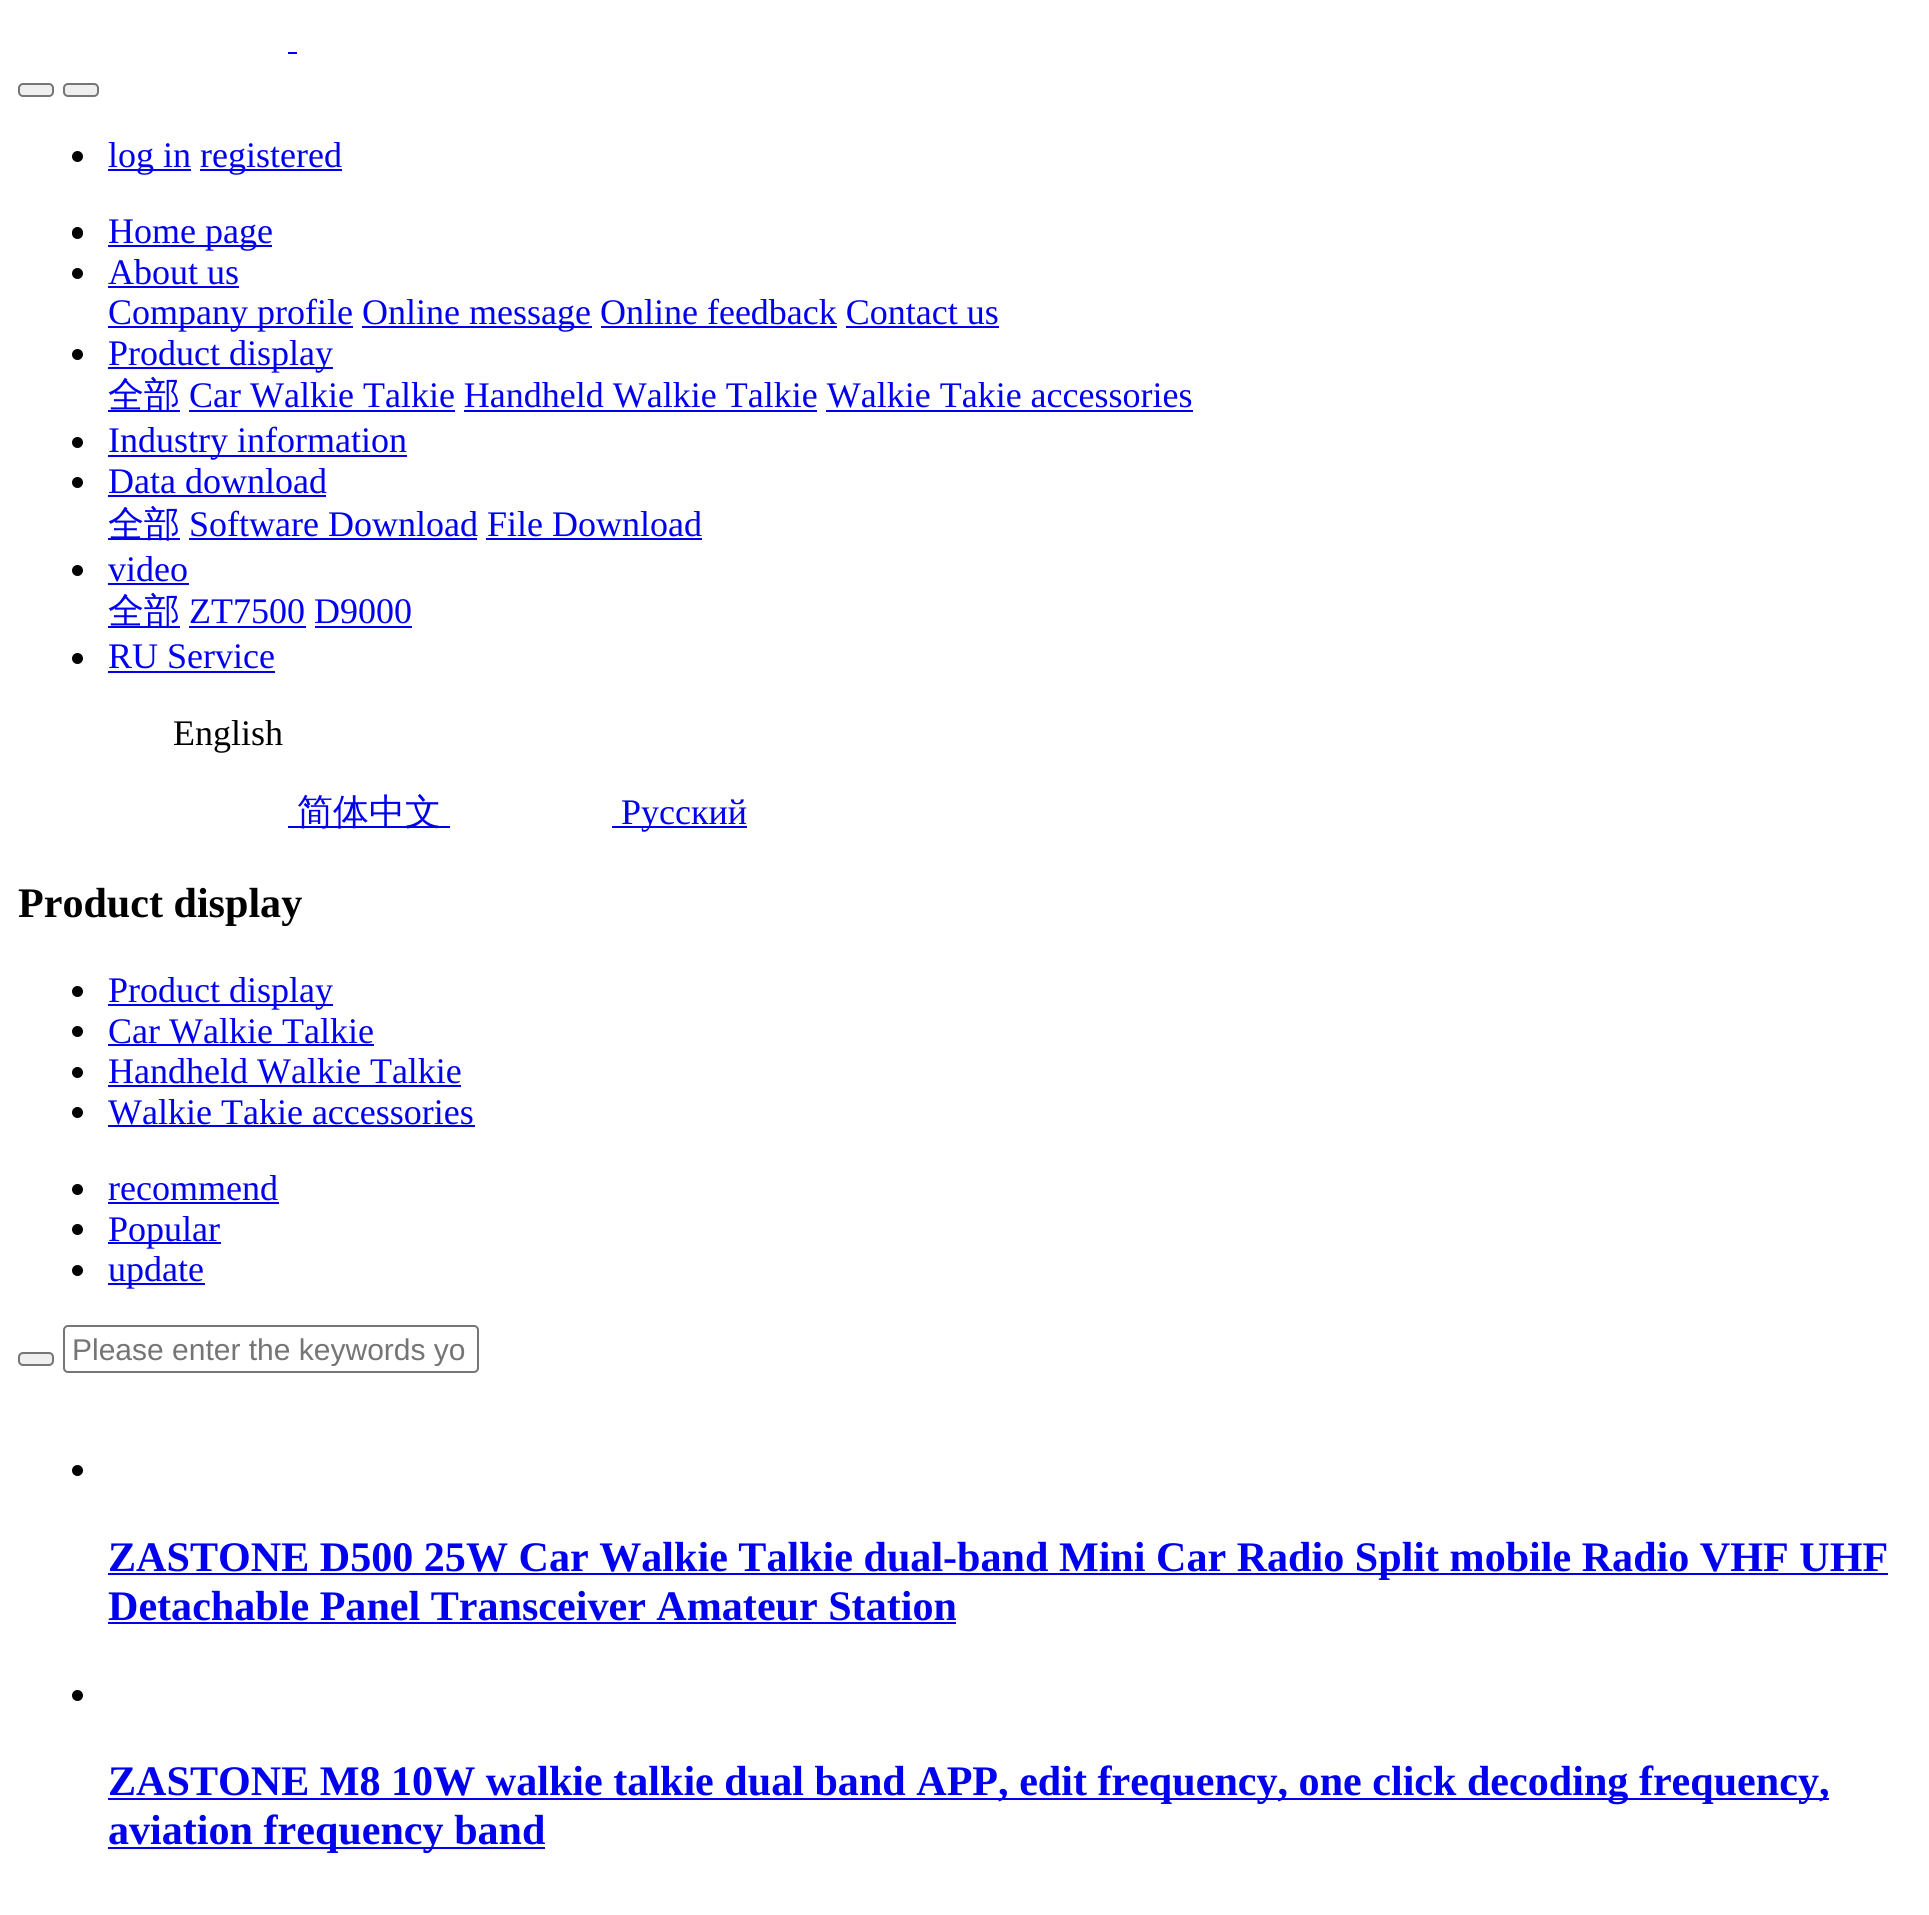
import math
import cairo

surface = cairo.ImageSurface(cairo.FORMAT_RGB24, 1929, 1915)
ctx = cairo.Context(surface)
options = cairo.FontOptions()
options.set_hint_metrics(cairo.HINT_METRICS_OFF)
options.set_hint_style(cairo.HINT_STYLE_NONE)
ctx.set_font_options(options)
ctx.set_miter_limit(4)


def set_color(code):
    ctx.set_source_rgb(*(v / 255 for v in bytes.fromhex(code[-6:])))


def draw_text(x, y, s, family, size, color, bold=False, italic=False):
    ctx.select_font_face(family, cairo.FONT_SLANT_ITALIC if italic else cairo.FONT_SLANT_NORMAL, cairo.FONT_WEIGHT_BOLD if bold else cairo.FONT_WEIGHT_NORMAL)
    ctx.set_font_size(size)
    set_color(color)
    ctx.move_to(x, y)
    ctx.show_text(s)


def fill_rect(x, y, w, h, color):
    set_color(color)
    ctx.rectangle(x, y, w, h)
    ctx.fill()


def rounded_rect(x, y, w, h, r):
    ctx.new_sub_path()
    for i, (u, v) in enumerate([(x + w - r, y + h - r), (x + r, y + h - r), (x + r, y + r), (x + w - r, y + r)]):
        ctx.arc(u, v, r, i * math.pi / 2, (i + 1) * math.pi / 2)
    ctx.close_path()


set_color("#ffffff")
ctx.paint()
fill_rect(288, 52, 9, 2, "#0000ee")
set_color("#efefef")
rounded_rect(19, 84, 34, 12, 4)
ctx.fill_preserve()
set_color("#767676")
ctx.stroke()
set_color("#efefef")
rounded_rect(64, 84, 34, 12, 4)
ctx.fill_preserve()
set_color("#767676")
ctx.stroke()
set_color("#000000")
ctx.arc(77.5, 156.5, 5.5, 0, 2 * math.pi)
ctx.fill()
fill_rect(108, 169, 83, 2, "#0000ee")
draw_text(108, 167, "log in", "Liberation Serif", 36, "#0000ee")
fill_rect(200, 169, 142, 2, "#0000ee")
draw_text(200, 167, "registered", "Liberation Serif", 36, "#0000ee")
set_color("#000000")
rounded_rect(72, 227, 11, 12, 5.5)
ctx.fill()
fill_rect(108, 245, 164, 2, "#0000ee")
draw_text(108, 243, "Home page", "Liberation Serif", 36, "#0000ee")
set_color("#000000")
ctx.new_path()
ctx.arc(77.5, 273.5, 5.5, 0, 2 * math.pi)
ctx.fill()
draw_text(108, 284, "About us", "Liberation Serif", 36, "#0000ee")
fill_rect(108, 286, 131, 2, "#0000ee")
fill_rect(108, 326, 245, 2, "#0000ee")
draw_text(108, 324, "Company profile", "Liberation Serif", 36, "#0000ee")
fill_rect(362, 326, 230, 2, "#0000ee")
draw_text(362, 324, "Online message Online feedback Contact us", "Liberation Serif", 36, "#0000ee")
fill_rect(601, 326, 236, 2, "#0000ee")
fill_rect(846, 326, 153, 2, "#0000ee")
set_color("#000000")
ctx.new_path()
ctx.arc(77.5, 354.5, 5.5, 0, 2 * math.pi)
ctx.fill()
fill_rect(108, 367, 225, 2, "#0000ee")
draw_text(108, 365, "Product display", "Liberation Serif", 36, "#0000ee")
fill_rect(108, 410, 72, 2, "#0000ee")
draw_text(108, 407, "全部", "WenQuanYi Zen Hei Medium", 36, "#0000ee")
draw_text(189, 407, "Car Walkie Talkie Handheld Walkie Talkie Walkie Takie accessories", "Liberation Serif", 36, "#0000ee")
fill_rect(189, 410, 266, 2, "#0000ee")
fill_rect(464, 410, 353, 2, "#0000ee")
fill_rect(826, 410, 367, 2, "#0000ee")
set_color("#000000")
ctx.new_path()
ctx.arc(77.5, 442.5, 5.5, 0, 2 * math.pi)
ctx.fill()
fill_rect(108, 455, 299, 2, "#0000ee")
draw_text(108, 452, "Industry information", "Liberation Serif", 36, "#0000ee")
set_color("#000000")
ctx.new_path()
ctx.arc(77.5, 482.5, 5.5, 0, 2 * math.pi)
ctx.fill()
draw_text(108, 493, "Data download", "Liberation Serif", 36, "#0000ee")
fill_rect(108, 495, 218, 2, "#0000ee")
fill_rect(108, 538, 72, 2, "#0000ee")
draw_text(108, 536, "全部", "WenQuanYi Zen Hei Medium", 36, "#0000ee")
draw_text(189, 536, "Software Download File Download", "Liberation Serif", 36, "#0000ee")
fill_rect(189, 538, 288, 2, "#0000ee")
fill_rect(486, 538, 216, 2, "#0000ee")
set_color("#000000")
ctx.new_path()
ctx.arc(77.5, 570.5, 5.5, 0, 2 * math.pi)
ctx.fill()
draw_text(108, 581, "video", "Liberation Serif", 36, "#0000ee")
fill_rect(108, 583, 81, 2, "#0000ee")
fill_rect(108, 626, 72, 2, "#0000ee")
draw_text(108, 623, "全部", "WenQuanYi Zen Hei Medium", 36, "#0000ee")
draw_text(189, 623, "ZT7500 D9000", "Liberation Serif", 36, "#0000ee")
fill_rect(189, 626, 117, 2, "#0000ee")
fill_rect(315, 626, 97, 2, "#0000ee")
set_color("#000000")
ctx.new_path()
ctx.arc(77.5, 658.5, 5.5, 0, 2 * math.pi)
ctx.fill()
draw_text(108, 668, "RU Service", "Liberation Serif", 36, "#0000ee")
fill_rect(108, 671, 167, 2, "#0000ee")
draw_text(173, 745, "English", "Liberation Serif", 36, "#000000")
fill_rect(288, 826, 162, 2, "#0000ee")
draw_text(297, 824, "简体中文", "WenQuanYi Zen Hei Medium", 36, "#0000ee")
fill_rect(612, 826, 135, 2, "#0000ee")
draw_text(621, 824, "Русский", "Liberation Serif", 36, "#0000ee")
draw_text(18, 917, "Product display", "Liberation Serif", 42.1, "#000000", bold=True)
ctx.new_path()
ctx.arc(77.5, 991.5, 5.5, 0, 2 * math.pi)
ctx.fill()
fill_rect(108, 1004, 225, 2, "#0000ee")
draw_text(108, 1002, "Product display", "Liberation Serif", 36, "#0000ee")
set_color("#000000")
ctx.new_path()
ctx.arc(77.5, 1031.5, 5.5, 0, 2 * math.pi)
ctx.fill()
draw_text(108, 1043, "Car Walkie Talkie", "Liberation Serif", 36, "#0000ee")
fill_rect(108, 1044, 266, 2, "#0000ee")
set_color("#000000")
ctx.new_path()
ctx.arc(77.5, 1072.5, 5.5, 0, 2 * math.pi)
ctx.fill()
draw_text(108, 1083, "Handheld Walkie Talkie", "Liberation Serif", 36, "#0000ee")
fill_rect(108, 1085, 353, 2, "#0000ee")
set_color("#000000")
ctx.new_path()
ctx.arc(77.5, 1112.5, 5.5, 0, 2 * math.pi)
ctx.fill()
draw_text(108, 1124, "Walkie Takie accessories", "Liberation Serif", 36, "#0000ee")
fill_rect(108, 1125, 367, 2, "#0000ee")
set_color("#000000")
ctx.new_path()
ctx.arc(77.5, 1189.5, 5.5, 0, 2 * math.pi)
ctx.fill()
draw_text(108, 1200, "recommend", "Liberation Serif", 36, "#0000ee")
fill_rect(108, 1202, 171, 2, "#0000ee")
set_color("#000000")
ctx.new_path()
ctx.arc(77.5, 1229.5, 5.5, 0, 2 * math.pi)
ctx.fill()
fill_rect(108, 1242, 113, 2, "#0000ee")
draw_text(108, 1241, "Popular", "Liberation Serif", 36, "#0000ee")
set_color("#000000")
ctx.new_path()
ctx.arc(77.5, 1270.5, 5.5, 0, 2 * math.pi)
ctx.fill()
fill_rect(108, 1283, 97, 2, "#0000ee")
draw_text(108, 1281, "update", "Liberation Serif", 36, "#0000ee")
set_color("#efefef")
rounded_rect(19, 1353, 34, 12, 4)
ctx.fill_preserve()
set_color("#767676")
ctx.stroke()
rounded_rect(64, 1326, 414, 46, 4)
ctx.stroke()
ctx.save()
ctx.rectangle(72, 1332, 398, 34)
ctx.clip()
draw_text(72, 1360, "Please enter the keywords yo", "Liberation Sans", 30, "#757575")
ctx.restore()
set_color("#000000")
ctx.new_path()
ctx.arc(77.5, 1470.5, 5.5, 0, 2 * math.pi)
ctx.fill()
fill_rect(108, 1573, 1780, 2, "#0000ee")
draw_text(108, 1571, "ZASTONE D500 25W Car Walkie Talkie dual-band Mini Car Radio Split mobile Radio VHF UHF", "Liberation Serif", 42.1, "#0000ee", bold=True)
draw_text(108, 1620, "Detachable Panel Transceiver Amateur Station", "Liberation Serif", 42.1, "#0000ee", bold=True)
fill_rect(108, 1622, 848, 2, "#0000ee")
set_color("#000000")
ctx.new_path()
ctx.arc(77.5, 1695.5, 5.5, 0, 2 * math.pi)
ctx.fill()
fill_rect(108, 1798, 1721, 2, "#0000ee")
draw_text(108, 1795, "ZASTONE M8 10W walkie talkie dual band APP, edit frequency, one click decoding frequency,", "Liberation Serif", 42.1, "#0000ee", bold=True)
fill_rect(108, 1847, 437, 2, "#0000ee")
draw_text(108, 1844, "aviation frequency band", "Liberation Serif", 42.1, "#0000ee", bold=True)
surface.write_to_png("output.png")
